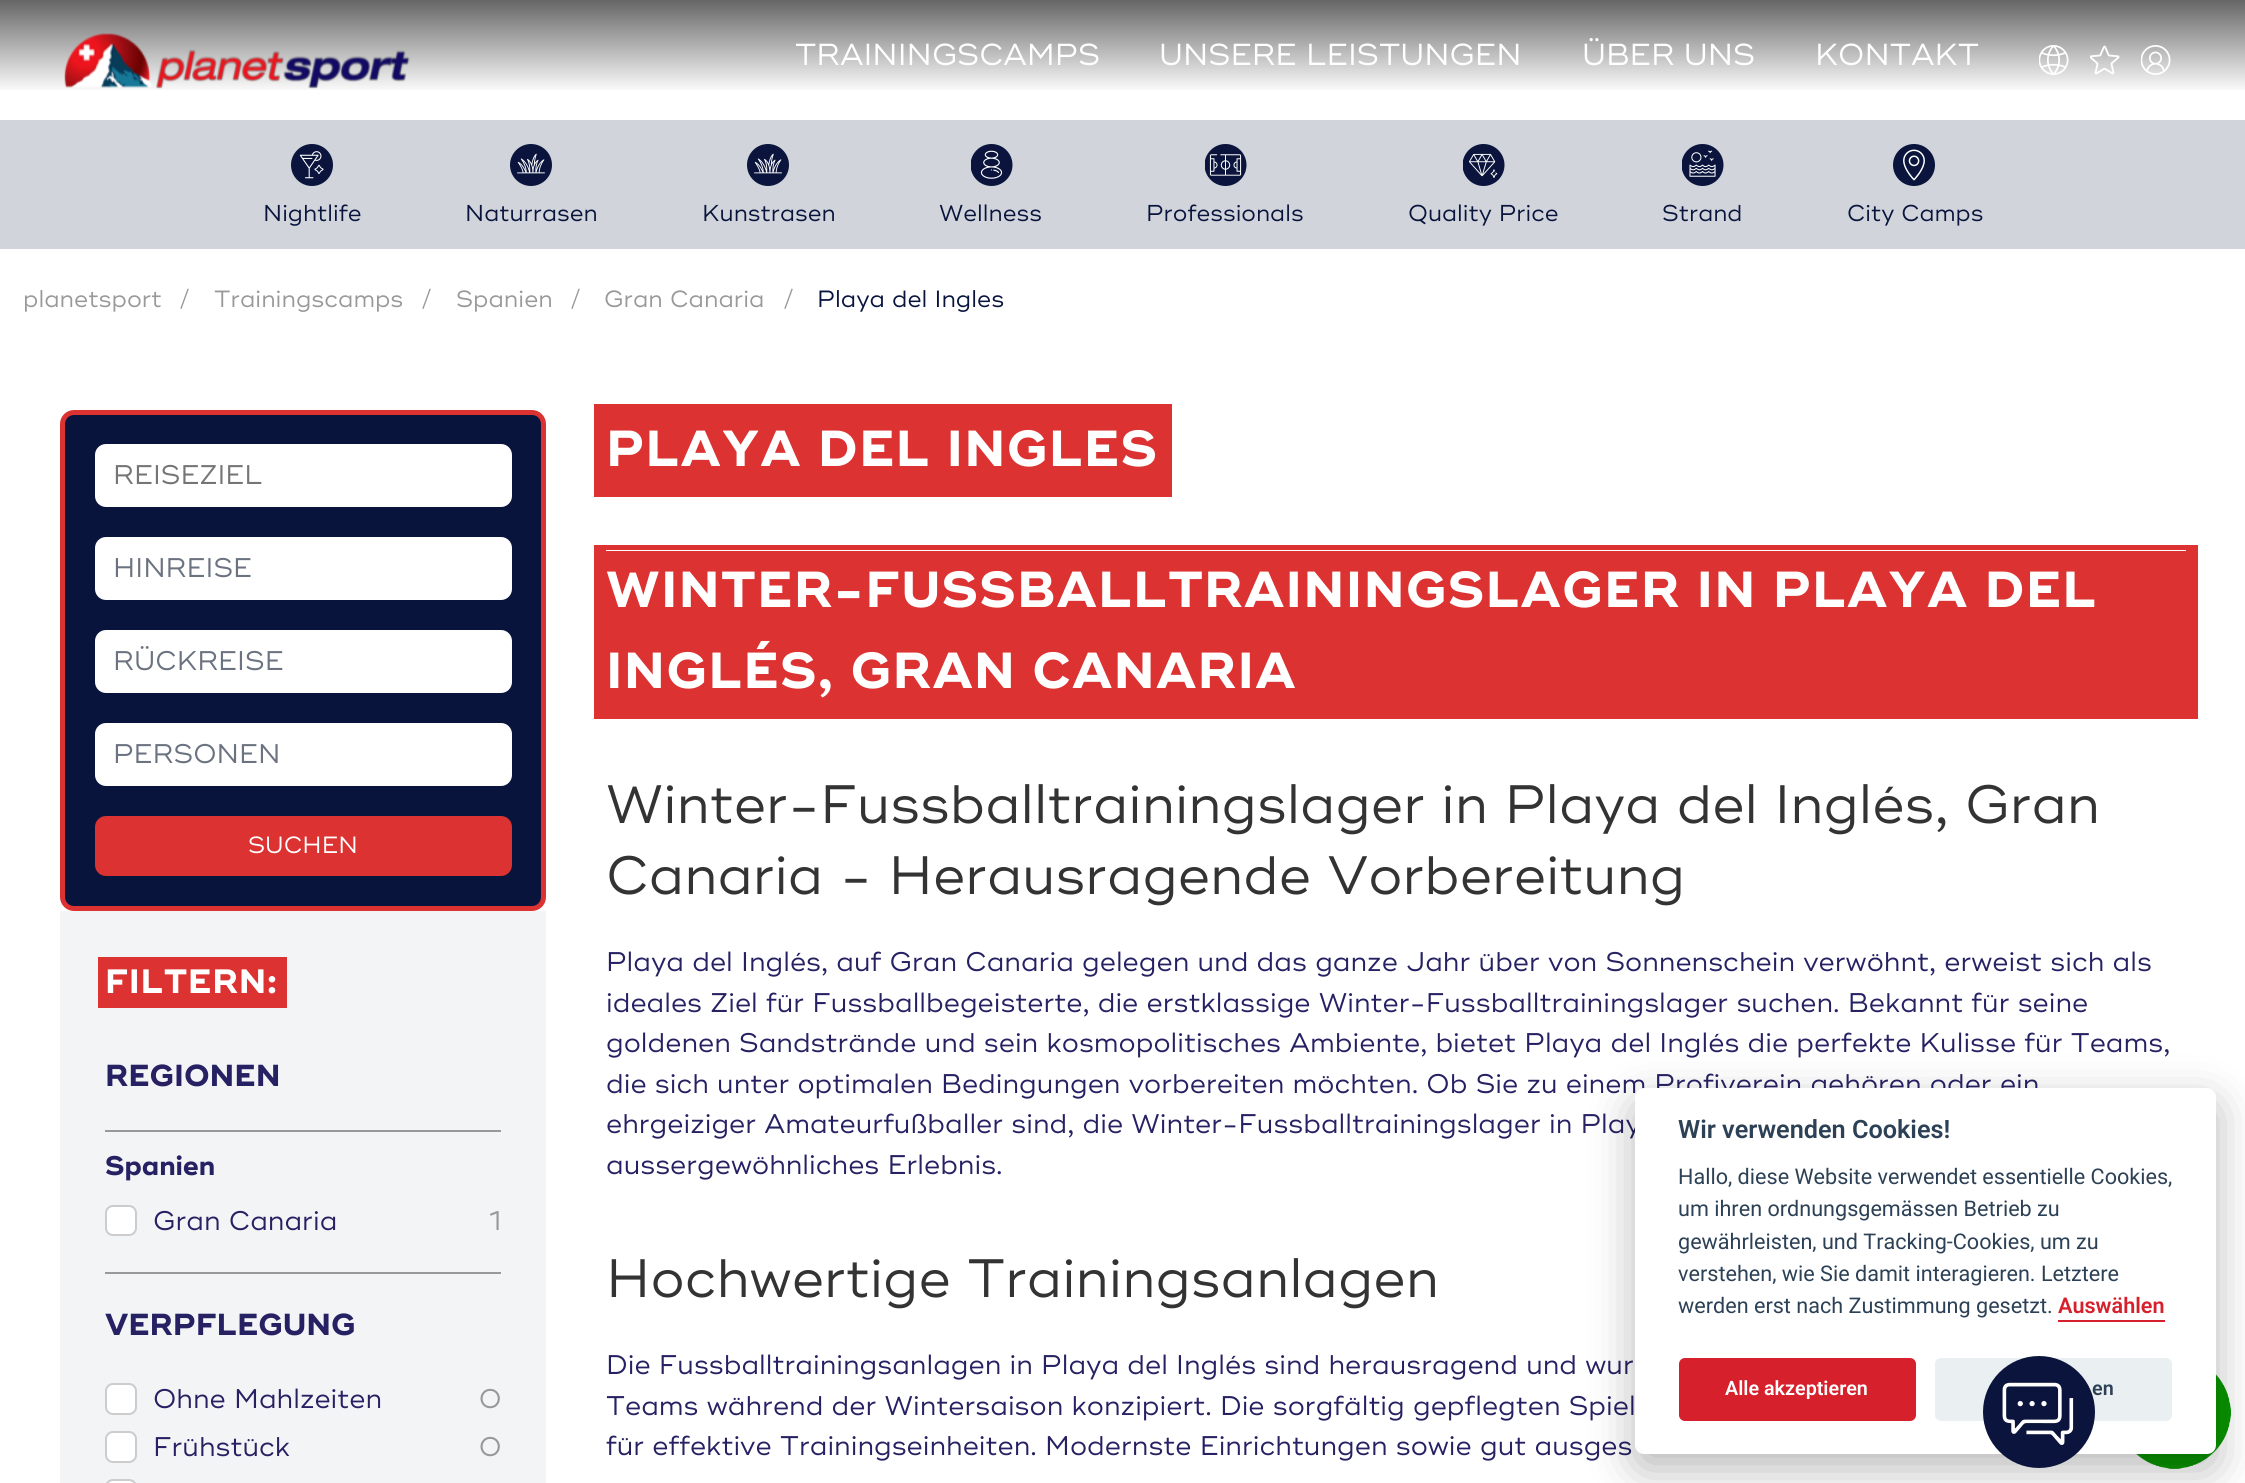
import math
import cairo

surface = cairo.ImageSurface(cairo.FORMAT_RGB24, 2245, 1483)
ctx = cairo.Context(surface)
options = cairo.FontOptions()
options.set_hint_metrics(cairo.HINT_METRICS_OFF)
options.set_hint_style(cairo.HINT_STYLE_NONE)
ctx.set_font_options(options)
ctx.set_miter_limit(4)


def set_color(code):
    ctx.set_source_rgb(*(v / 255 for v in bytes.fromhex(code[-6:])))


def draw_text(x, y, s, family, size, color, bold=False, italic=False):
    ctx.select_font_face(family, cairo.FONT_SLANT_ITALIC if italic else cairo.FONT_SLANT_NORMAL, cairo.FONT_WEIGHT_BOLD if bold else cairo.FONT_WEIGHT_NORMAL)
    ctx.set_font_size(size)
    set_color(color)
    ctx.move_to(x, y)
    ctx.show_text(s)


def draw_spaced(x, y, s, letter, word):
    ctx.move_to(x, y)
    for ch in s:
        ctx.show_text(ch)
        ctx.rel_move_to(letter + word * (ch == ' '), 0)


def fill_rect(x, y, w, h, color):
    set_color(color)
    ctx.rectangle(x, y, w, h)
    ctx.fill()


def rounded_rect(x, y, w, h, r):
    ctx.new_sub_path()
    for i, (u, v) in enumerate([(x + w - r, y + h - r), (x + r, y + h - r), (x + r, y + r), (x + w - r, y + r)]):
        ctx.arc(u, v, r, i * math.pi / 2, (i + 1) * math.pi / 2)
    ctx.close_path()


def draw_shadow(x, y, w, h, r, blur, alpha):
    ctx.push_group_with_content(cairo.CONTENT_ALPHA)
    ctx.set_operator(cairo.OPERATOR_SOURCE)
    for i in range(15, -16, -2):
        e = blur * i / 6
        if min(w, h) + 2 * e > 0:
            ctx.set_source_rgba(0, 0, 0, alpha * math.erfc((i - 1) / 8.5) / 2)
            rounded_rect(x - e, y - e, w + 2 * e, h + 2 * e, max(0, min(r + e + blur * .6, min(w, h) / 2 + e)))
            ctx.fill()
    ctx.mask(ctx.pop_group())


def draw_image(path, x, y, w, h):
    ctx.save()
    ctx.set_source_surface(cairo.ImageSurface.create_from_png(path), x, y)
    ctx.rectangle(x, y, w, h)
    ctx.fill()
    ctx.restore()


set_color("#ffffff")
ctx.paint()
gradient = cairo.LinearGradient(1123, 0, 1123, 123)
gradient.add_color_stop_rgba(0, 0, 0, 0, 0.6)
gradient.add_color_stop_rgba(0.76, 0, 0, 0, 0)
ctx.set_source(gradient)
ctx.rectangle(0, 0, 2245, 90)
ctx.fill()
draw_image("assets/img1.png", 64, 33, 346, 56)
draw_text(795, 65, "TRAININGSCAMPS", "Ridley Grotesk", 30.4, "#ffffff")
draw_text(1159, 65, "UNSERE LEISTUNGEN", "Ridley Grotesk", 30.4, "#ffffff")
draw_text(1582, 65, "ÜBER UNS", "Ridley Grotesk", 30.4, "#ffffff")
draw_text(1815, 65, "KONTAKT", "Ridley Grotesk", 30.4, "#ffffff")
draw_image("assets/img2.png", 2039, 45, 30, 30)
draw_image("assets/img3.png", 2090, 45, 30, 30)
draw_image("assets/img4.png", 2141, 45, 30, 30)
fill_rect(0, 120, 2245, 129, "#d1d5db")
draw_image("assets/img5.png", 291, 144, 42, 42)
draw_text(263, 221, "Nightlife", "Ridley Grotesk", 23, "#09143d")
draw_image("assets/img6.png", 510, 144, 42, 42)
draw_text(465, 221, "Naturrasen", "Ridley Grotesk", 23, "#09143d")
draw_image("assets/img6.png", 747, 144, 42, 42)
draw_text(702, 221, "Kunstrasen", "Ridley Grotesk", 23, "#09143d")
draw_image("assets/img7.png", 971, 144, 42, 42)
draw_text(939, 221, "Wellness", "Ridley Grotesk", 23, "#09143d")
draw_image("assets/img8.png", 1205, 144, 42, 42)
draw_text(1146, 221, "Professionals", "Ridley Grotesk", 23, "#09143d")
draw_image("assets/img9.png", 1463, 144, 42, 42)
draw_text(1408, 221, "Quality Price", "Ridley Grotesk", 23, "#09143d")
draw_image("assets/img10.png", 1682, 144, 42, 42)
draw_text(1662, 221, "Strand", "Ridley Grotesk", 23, "#09143d")
draw_image("assets/img11.png", 1893, 144, 42, 42)
draw_text(1847, 221, "City Camps", "Ridley Grotesk", 23, "#09143d")
draw_text(23, 307, "planetsport", "Ridley Grotesk", 23.5, "#999999")
draw_text(179, 307, "/", "Ridley Grotesk", 23.5, "#999999")
draw_text(214, 307, "Trainingscamps", "Ridley Grotesk", 23.5, "#999999")
draw_text(421, 307, "/", "Ridley Grotesk", 23.5, "#999999")
draw_text(456, 307, "Spanien", "Ridley Grotesk", 23.5, "#999999")
draw_text(570, 307, "/", "Ridley Grotesk", 23.5, "#999999")
draw_text(604, 307, "Gran Canaria", "Ridley Grotesk", 23.5, "#999999")
draw_text(783, 307, "/", "Ridley Grotesk", 23.5, "#999999")
draw_text(817, 307, "Playa del Ingles", "Ridley Grotesk", 23.5, "#09143d")
rounded_rect(62.5, 412.5, 481, 496, 11.5)
ctx.fill_preserve()
set_color("#dc3232")
ctx.set_line_width(5)
ctx.stroke()
set_color("#ffffff")
rounded_rect(95, 444, 417, 63, 11)
ctx.fill()
draw_text(113, 484, "REISEZIEL", "Ridley Grotesk", 27, "#757575")
set_color("#ffffff")
rounded_rect(95, 537, 417, 63, 11)
ctx.fill()
draw_text(113, 577, "HINREISE", "Ridley Grotesk", 27, "#6b7280")
set_color("#ffffff")
rounded_rect(95, 630, 417, 63, 11)
ctx.fill()
draw_text(113, 670, "RÜCKREISE", "Ridley Grotesk", 27, "#6b7280")
set_color("#ffffff")
rounded_rect(95, 723, 417, 63, 11)
ctx.fill()
draw_text(113, 763, "PERSONEN", "Ridley Grotesk", 27, "#6b7280")
set_color("#dc3232")
rounded_rect(95, 816, 417, 60, 11)
ctx.fill()
draw_text(248, 853, "SUCHEN", "Ridley Grotesk", 23.5, "#ffffff")
fill_rect(60, 911, 486, 572, "#f3f4f6")
set_color("#dc3232")
ctx.new_path()
ctx.move_to(98, 957)
ctx.line_to(98, 1008)
ctx.line_to(279, 1008)
ctx.line_to(279, 1004)
ctx.line_to(105, 1004)
ctx.line_to(105, 962)
ctx.line_to(279, 962)
ctx.line_to(279, 957)
ctx.close_path()
ctx.fill()
ctx.new_path()
ctx.move_to(105, 957)
ctx.line_to(105, 962)
ctx.line_to(279, 962)
ctx.line_to(279, 1004)
ctx.line_to(105, 1004)
ctx.line_to(105, 1008)
ctx.line_to(287, 1008)
ctx.line_to(287, 957)
ctx.close_path()
ctx.fill()
fill_rect(105, 962, 174, 42, "#dc3232")
ctx.select_font_face("Ridley Grotesk", cairo.FONT_SLANT_NORMAL, cairo.FONT_WEIGHT_BOLD)
ctx.set_font_size(33.75)
set_color("#ffffff")
draw_spaced(105, 993, "FILTERN:", 0.75, 0)
fill_rect(105, 1272, 396, 2, "#999999")
draw_text(105, 1086, "REGIONEN", "Ridley Grotesk", 30.4, "#262163", bold=True)
fill_rect(105, 1130, 396, 2, "#999999")
draw_text(105, 1175, "Spanien", "Ridley Grotesk", 27, "#262163", bold=True)
set_color("#ffffff")
rounded_rect(106, 1206, 30, 29, 7)
ctx.fill_preserve()
set_color("#cccccc")
ctx.set_line_width(2)
ctx.stroke()
draw_text(153, 1230, "Gran Canaria", "Ridley Grotesk", 27, "#262163")
draw_text(489, 1230, "1", "Ridley Grotesk", 27, "#999999")
draw_text(105, 1335, "VERPFLEGUNG", "Ridley Grotesk", 30.4, "#262163", bold=True)
set_color("#ffffff")
rounded_rect(106, 1384, 30, 30, 7)
ctx.fill_preserve()
set_color("#cccccc")
ctx.stroke()
draw_text(153, 1408, "Ohne Mahlzeiten", "Ridley Grotesk", 27, "#262163")
draw_text(479, 1408, "0", "Ridley Grotesk", 27, "#999999")
set_color("#ffffff")
rounded_rect(106, 1432, 30, 30, 7)
ctx.fill_preserve()
set_color("#cccccc")
ctx.stroke()
draw_text(153, 1456, "Frühstück", "Ridley Grotesk", 27, "#262163")
draw_text(479, 1456, "0", "Ridley Grotesk", 27, "#999999")
set_color("#ffffff")
rounded_rect(106, 1480, 30, 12, 7)
ctx.fill_preserve()
set_color("#cccccc")
ctx.stroke()
set_color("#dc3232")
ctx.set_fill_rule(cairo.FILL_RULE_EVEN_ODD)
ctx.new_path()
ctx.move_to(594, 404)
ctx.line_to(594, 497)
ctx.line_to(1160, 497)
ctx.line_to(1160, 404)
ctx.close_path()
ctx.move_to(606, 410)
ctx.line_to(606, 490)
ctx.line_to(1160, 490)
ctx.line_to(1160, 410)
ctx.close_path()
ctx.fill()
ctx.set_fill_rule(cairo.FILL_RULE_WINDING)
ctx.new_path()
ctx.move_to(606, 404)
ctx.line_to(606, 410)
ctx.line_to(1160, 410)
ctx.line_to(1160, 490)
ctx.line_to(606, 490)
ctx.line_to(606, 497)
ctx.line_to(1172, 497)
ctx.line_to(1172, 404)
ctx.close_path()
ctx.fill()
fill_rect(606, 410, 554, 80, "#dc3232")
ctx.select_font_face("Ridley Grotesk", cairo.FONT_SLANT_NORMAL, cairo.FONT_WEIGHT_BOLD)
ctx.set_font_size(50.6)
set_color("#ffffff")
draw_spaced(606, 466, "PLAYA DEL INGLES", 1.25, 0)
set_color("#dc3232")
ctx.set_fill_rule(cairo.FILL_RULE_EVEN_ODD)
ctx.new_path()
ctx.move_to(594, 545)
ctx.line_to(594, 719)
ctx.line_to(2186, 719)
ctx.line_to(2186, 545)
ctx.close_path()
ctx.move_to(606, 550)
ctx.line_to(606, 712)
ctx.line_to(2186, 712)
ctx.line_to(2186, 550)
ctx.close_path()
ctx.fill()
ctx.set_fill_rule(cairo.FILL_RULE_WINDING)
ctx.new_path()
ctx.move_to(606, 545)
ctx.line_to(606, 550)
ctx.line_to(2186, 550)
ctx.line_to(2186, 712)
ctx.line_to(606, 712)
ctx.line_to(606, 719)
ctx.line_to(2198, 719)
ctx.line_to(2198, 545)
ctx.close_path()
ctx.fill()
fill_rect(606, 551, 1580, 161, "#dc3232")
set_color("#ffffff")
draw_spaced(606, 607, "WINTER-FUSSBALLTRAININGSLAGER IN PLAYA DEL", 1.25, 0)
draw_spaced(606, 688, "INGLÉS, GRAN CANARIA", 1.25, 0)
draw_text(606, 823, "Winter-Fussballtrainingslager in Playa del Inglés, Gran", "Ridley Grotesk", 54, "#333333")
draw_text(606, 894, "Canaria - Herausragende Vorbereitung", "Ridley Grotesk", 54, "#333333")
draw_text(606, 971, "Playa del Inglés, auf Gran Canaria gelegen und das ganze Jahr über von Sonnenschein verwöhnt, erweist sich als", "Ridley Grotesk", 27, "#262163")
draw_text(606, 1012, "ideales Ziel für Fussballbegeisterte, die erstklassige Winter-Fussballtrainingslager suchen. Bekannt für seine", "Ridley Grotesk", 27, "#262163")
draw_text(606, 1052, "goldenen Sandstrände und sein kosmopolitisches Ambiente, bietet Playa del Inglés die perfekte Kulisse für Teams,", "Ridley Grotesk", 27, "#262163")
draw_text(606, 1093, "die sich unter optimalen Bedingungen vorbereiten möchten. Ob Sie zu einem Profiverein gehören oder ein", "Ridley Grotesk", 27, "#262163")
draw_text(606, 1133, "ehrgeiziger Amateurfußballer sind, die Winter-Fussballtrainingslager in Play", "Ridley Grotesk", 27, "#262163")
draw_text(606, 1174, "aussergewöhnliches Erlebnis.", "Ridley Grotesk", 27, "#262163")
draw_text(606, 1297, "Hochwertige Trainingsanlagen", "Ridley Grotesk", 54, "#333333")
draw_text(606, 1374, "Die Fussballtrainingsanlagen in Playa del Inglés sind herausragend und wur", "Ridley Grotesk", 27, "#262163")
draw_text(606, 1415, "Teams während der Wintersaison konzipiert. Die sorgfältig gepflegten Spiel", "Ridley Grotesk", 27, "#262163")
draw_text(606, 1455, "für effektive Trainingseinheiten. Modernste Einrichtungen sowie gut ausges", "Ridley Grotesk", 27, "#262163")
draw_image("assets/img13.png", 2136, 1374, 95, 95)
set_color("#020203")
draw_shadow(1635, 1103, 581, 366, 9, 22.5, 0.28)
set_color("#ffffff")
rounded_rect(1635, 1088, 581, 366, 9)
ctx.fill()
set_color("#eaeff2")
rounded_rect(1935, 1358, 237, 63, 6)
ctx.fill()
draw_text(2092, 1395, "en", "Roboto SemiBold", 19.75, "#2d4156")
draw_image("assets/img12.png", 1983, 1356, 112, 112)
draw_text(1678, 1138, "Wir verwenden Cookies!", "Roboto SemiBold", 25.25, "#2d4156")
draw_text(1678, 1184, "Hallo, diese Website verwendet essentielle Cookies,", "Roboto", 21.6, "#2d4156")
draw_text(1678, 1216, "um ihren ordnungsgemässen Betrieb zu", "Roboto", 21.6, "#2d4156")
draw_text(1678, 1249, "gewährleisten, und Tracking-Cookies, um zu", "Roboto", 21.6, "#2d4156")
draw_text(1678, 1281, "verstehen, wie Sie damit interagieren. Letztere", "Roboto", 21.6, "#2d4156")
draw_text(1678, 1313, "werden erst nach Zustimmung gesetzt.", "Roboto", 21.6, "#2d4156")
draw_text(2058, 1313, "Auswählen", "Roboto SemiBold", 21.6, "#d6212c")
fill_rect(2058, 1320, 107, 2, "#d6212c")
rounded_rect(1679, 1358, 237, 63, 6)
ctx.fill()
draw_text(1725, 1395, "Alle akzeptieren", "Roboto SemiBold", 19.75, "#ffffff")
surface.write_to_png("output.png")
